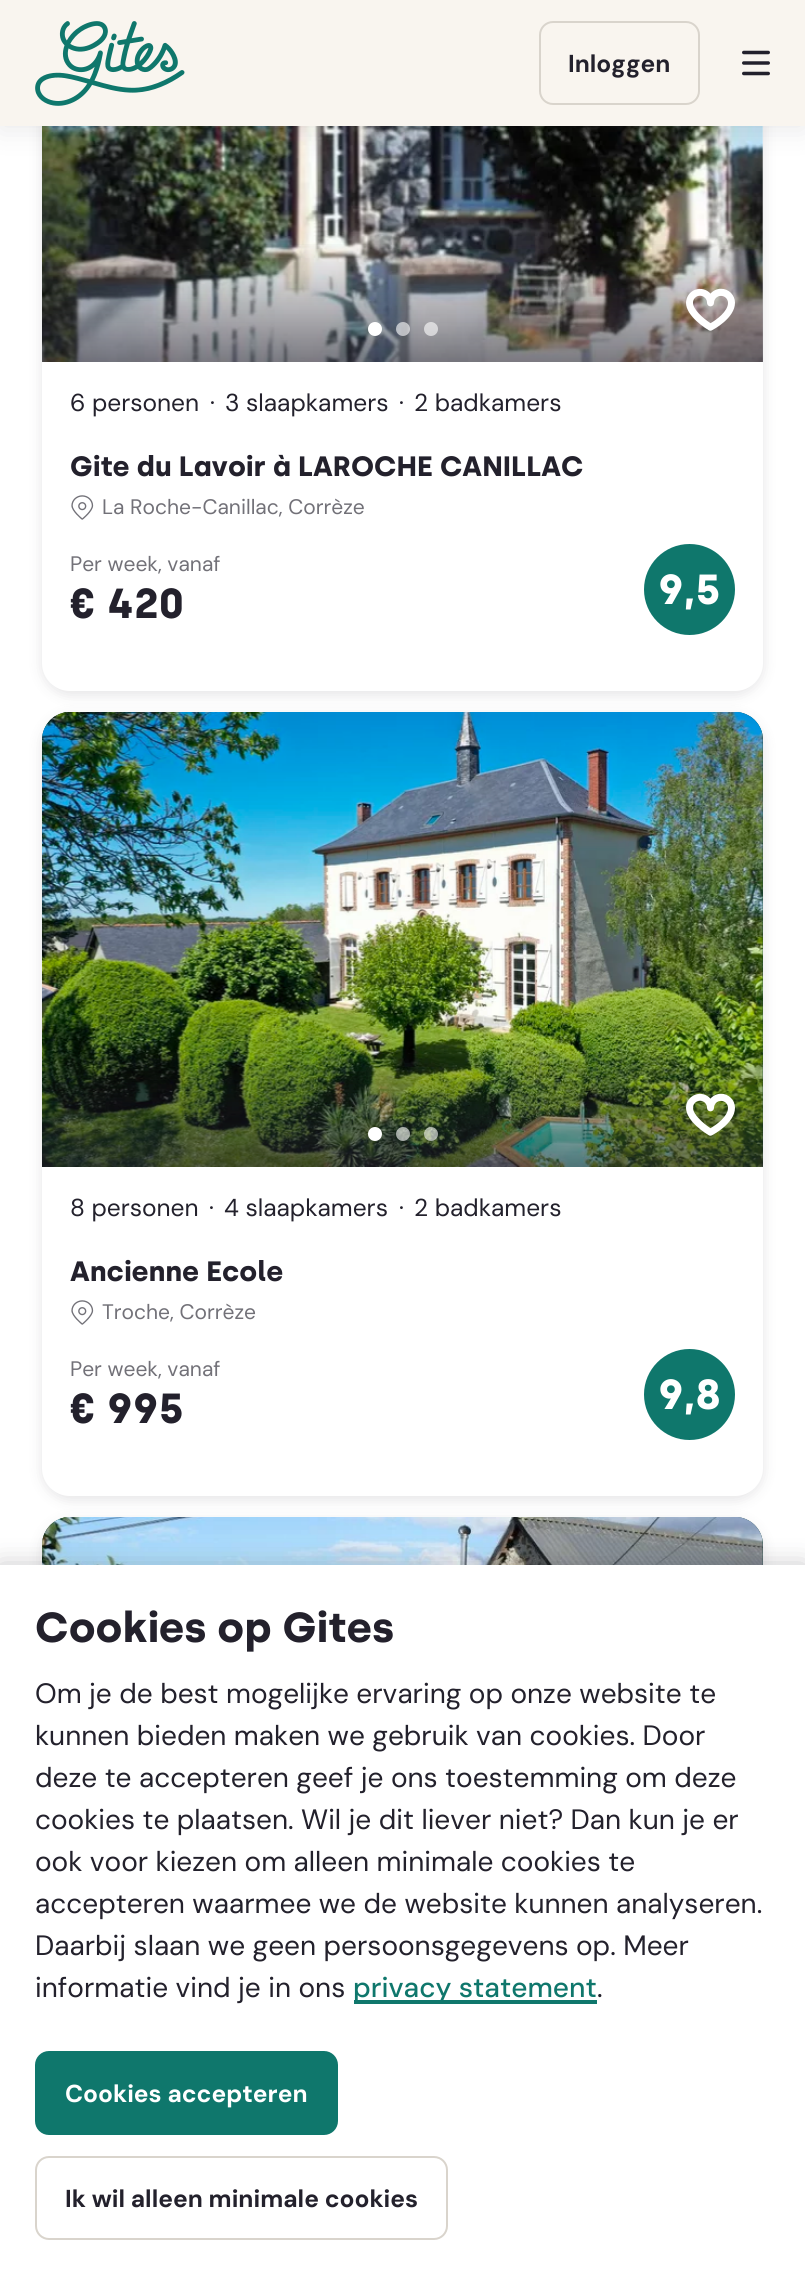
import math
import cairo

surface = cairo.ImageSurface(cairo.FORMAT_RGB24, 805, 2281)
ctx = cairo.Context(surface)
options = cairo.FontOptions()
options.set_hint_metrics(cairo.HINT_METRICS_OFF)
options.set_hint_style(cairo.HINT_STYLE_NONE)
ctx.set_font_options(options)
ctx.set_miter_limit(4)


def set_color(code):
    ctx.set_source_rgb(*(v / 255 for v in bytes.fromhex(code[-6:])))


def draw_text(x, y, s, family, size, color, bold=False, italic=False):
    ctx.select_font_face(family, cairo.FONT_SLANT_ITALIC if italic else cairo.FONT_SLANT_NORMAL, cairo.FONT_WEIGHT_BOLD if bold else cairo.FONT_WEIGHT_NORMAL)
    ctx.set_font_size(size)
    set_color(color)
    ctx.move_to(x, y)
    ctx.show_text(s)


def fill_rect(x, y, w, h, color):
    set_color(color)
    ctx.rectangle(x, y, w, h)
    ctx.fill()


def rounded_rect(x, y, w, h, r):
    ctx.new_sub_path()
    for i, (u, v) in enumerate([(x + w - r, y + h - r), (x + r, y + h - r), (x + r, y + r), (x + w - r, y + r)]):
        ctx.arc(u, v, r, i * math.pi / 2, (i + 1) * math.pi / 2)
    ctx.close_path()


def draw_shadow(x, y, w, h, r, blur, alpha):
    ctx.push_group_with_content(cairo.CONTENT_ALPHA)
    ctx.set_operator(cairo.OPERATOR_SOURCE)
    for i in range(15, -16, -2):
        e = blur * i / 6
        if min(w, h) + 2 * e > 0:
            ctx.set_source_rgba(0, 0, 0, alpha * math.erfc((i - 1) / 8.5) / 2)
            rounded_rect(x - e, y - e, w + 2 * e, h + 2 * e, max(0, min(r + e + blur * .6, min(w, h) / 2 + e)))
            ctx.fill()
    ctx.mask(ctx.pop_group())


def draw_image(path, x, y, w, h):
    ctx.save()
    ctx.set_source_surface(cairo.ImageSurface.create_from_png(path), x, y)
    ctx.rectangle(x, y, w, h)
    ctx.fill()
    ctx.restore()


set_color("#ffffff")
ctx.paint()
set_color("#23212c")
draw_shadow(42, -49, 721, 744, 28, 7, 0.12)
set_color("#ffffff")
rounded_rect(42, -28, 721, 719, 28)
ctx.fill()
draw_image("assets/img4.png", 42, 126, 721, 236)
set_color("#23212c")
draw_shadow(0, 4, 805, 126, 0, 14, 0.1)
fill_rect(0, 0, 805, 126, "#f9f5ef")
draw_image("assets/img1.png", 35, 21, 150, 85)
rounded_rect(540, 22, 159, 82, 13)
set_color("#d9d4cc")
ctx.stroke()
draw_text(568, 72, "Inloggen", "DM Sans", 24.5, "#23212c", bold=True)
draw_image("assets/img2.png", 742, 50, 28, 26)
gradient = cairo.LinearGradient(403, 362, 403, 226)
gradient.add_color_stop_rgba(0, 0.137, 0.129, 0.173, 0.6)
gradient.add_color_stop_rgba(0.9, 0.137, 0.129, 0.173, 0)
ctx.set_source(gradient)
ctx.rectangle(42, 244, 721, 118)
ctx.fill()
draw_image("assets/img3.png", 686, 288, 49, 43)
set_color("#ffffff")
ctx.arc(375, 329, 7, 0, 2 * math.pi)
ctx.fill()
ctx.set_source_rgba(1, 1, 1, 0.6)
ctx.arc(403, 329, 7, 0, 2 * math.pi)
ctx.fill()
ctx.arc(431, 329, 7, 0, 2 * math.pi)
ctx.fill()
draw_text(70, 411, "6 personen", "DM Sans", 24.5, "#23212c")
draw_text(210, 411, "·", "DM Sans", 24.5, "#23212c")
draw_text(225, 411, "3 slaapkamers", "DM Sans", 24.5, "#23212c")
draw_text(399, 411, "·", "DM Sans", 24.5, "#23212c")
draw_text(414, 411, "2 badkamers", "DM Sans", 24.5, "#23212c")
draw_text(70, 476, "Gite du Lavoir à LAROCHE CANILLAC", "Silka", 28, "#23212c", bold=True)
draw_image("assets/img5.png", 71, 495, 23, 25)
draw_text(102, 514, "La Roche-Canillac, Corrèze", "DM Sans", 21, "#727178")
draw_text(70, 571, "Per week, vanaf", "DM Sans", 21, "#727178")
draw_text(70, 618, "€ 420", "Silka", 42, "#23212c", bold=True)
set_color("#0f776c")
ctx.new_path()
ctx.arc(689.5, 589.5, 45.5, 0, 2 * math.pi)
ctx.fill()
draw_text(658, 604, "9,5", "Silka", 42, "#ffffff", bold=True)
set_color("#23212c")
draw_shadow(42, 716, 721, 784, 28, 7, 0.12)
set_color("#ffffff")
rounded_rect(42, 712, 721, 784, 28)
ctx.fill()
set_color("#033a33")
ctx.new_path()
ctx.move_to(70, 712)
ctx.line_to(735, 712)
ctx.curve_to(750.5, 712, 763, 724.5, 763, 740)
ctx.line_to(763, 1167)
ctx.line_to(42, 1167)
ctx.line_to(42, 740)
ctx.curve_to(42, 724.5, 54.5, 712, 70, 712)
ctx.close_path()
ctx.fill()
draw_image("assets/img7.png", 42, 712, 721, 455)
gradient = cairo.LinearGradient(403, 1167, 403, 1031)
gradient.add_color_stop_rgba(0, 0.137, 0.129, 0.173, 0.6)
gradient.add_color_stop_rgba(0.9, 0.137, 0.129, 0.173, 0)
ctx.set_source(gradient)
ctx.rectangle(42, 1049, 721, 118)
ctx.fill()
draw_image("assets/img6.png", 686, 1093, 49, 43)
set_color("#ffffff")
ctx.arc(375, 1134, 7, 0, 2 * math.pi)
ctx.fill()
ctx.set_source_rgba(1, 1, 1, 0.6)
ctx.arc(403, 1134, 7, 0, 2 * math.pi)
ctx.fill()
ctx.arc(431, 1134, 7, 0, 2 * math.pi)
ctx.fill()
draw_text(70, 1216, "8 personen", "DM Sans", 24.5, "#23212c")
draw_text(209, 1216, "·", "DM Sans", 24.5, "#23212c")
draw_text(224, 1216, "4 slaapkamers", "DM Sans", 24.5, "#23212c")
draw_text(399, 1216, "·", "DM Sans", 24.5, "#23212c")
draw_text(414, 1216, "2 badkamers", "DM Sans", 24.5, "#23212c")
draw_text(70, 1281, "Ancienne Ecole", "Silka", 28, "#23212c", bold=True)
draw_image("assets/img5.png", 71, 1300, 23, 25)
draw_text(102, 1319, "Troche, Corrèze", "DM Sans", 21, "#727178")
draw_text(70, 1376, "Per week, vanaf", "DM Sans", 21, "#727178")
draw_text(70, 1423, "€ 995", "Silka", 42, "#23212c", bold=True)
set_color("#0f776c")
ctx.new_path()
ctx.arc(689.5, 1394.5, 45.5, 0, 2 * math.pi)
ctx.fill()
draw_text(658, 1409, "9,8", "Silka", 42, "#ffffff", bold=True)
set_color("#23212c")
draw_shadow(42, 1521, 721, 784, 28, 7, 0.12)
set_color("#033a33")
ctx.new_path()
ctx.move_to(70, 1517)
ctx.line_to(735, 1517)
ctx.curve_to(750.5, 1517, 763, 1529.5, 763, 1545)
ctx.line_to(763, 1972)
ctx.line_to(42, 1972)
ctx.line_to(42, 1545)
ctx.curve_to(42, 1529.5, 54.5, 1517, 70, 1517)
ctx.close_path()
ctx.fill()
draw_image("assets/img8.png", 42, 1517, 721, 48)
set_color("#23212c")
draw_shadow(0, 1568, 805, 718, 0, 14, 0.3)
fill_rect(0, 1565, 805, 716, "#ffffff")
draw_text(35, 1642, "Cookies op Gites", "Silka", 42, "#23212c", bold=True)
draw_text(35, 1703, "Om je de best mogelijke ervaring op onze website te", "DM Sans", 28, "#23212c")
draw_text(35, 1745, "kunnen bieden maken we gebruik van cookies. Door", "DM Sans", 28, "#23212c")
draw_text(35, 1787, "deze te accepteren geef je ons toestemming om deze", "DM Sans", 28, "#23212c")
draw_text(35, 1829, "cookies te plaatsen. Wil je dit liever niet? Dan kun je er", "DM Sans", 28, "#23212c")
draw_text(35, 1871, "ook voor kiezen om alleen minimale cookies te", "DM Sans", 28, "#23212c")
draw_text(35, 1913, "accepteren waarmee we de website kunnen analyseren.", "DM Sans", 28, "#23212c")
draw_text(35, 1955, "Daarbij slaan we geen persoonsgegevens op. Meer", "DM Sans", 28, "#23212c")
draw_text(35, 1997, "informatie vind je in ons", "DM Sans", 28, "#23212c")
fill_rect(354, 2000, 243, 4, "#0f776c")
draw_text(353, 1997, "privacy statement", "DM Sans Medium", 28, "#0f776c")
draw_text(597, 1997, ".", "DM Sans", 28, "#23212c")
set_color("#0f776c")
rounded_rect(35, 2051, 303, 84, 14)
ctx.fill()
draw_text(65, 2102, "Cookies accepteren", "DM Sans", 24.5, "#ffffff", bold=True)
rounded_rect(36, 2157, 411, 82, 13)
set_color("#d9d4cc")
ctx.stroke()
draw_text(65, 2207, "Ik wil alleen minimale cookies", "DM Sans", 24.5, "#23212c", bold=True)
surface.write_to_png("output.png")
